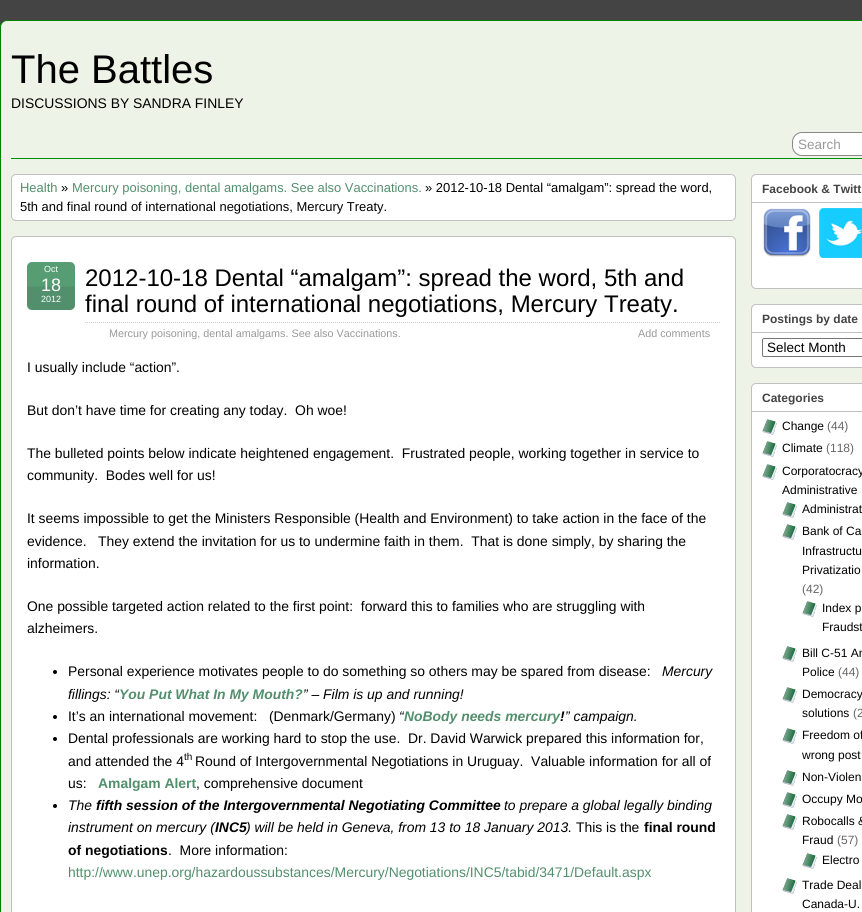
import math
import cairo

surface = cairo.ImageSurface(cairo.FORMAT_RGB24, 862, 912)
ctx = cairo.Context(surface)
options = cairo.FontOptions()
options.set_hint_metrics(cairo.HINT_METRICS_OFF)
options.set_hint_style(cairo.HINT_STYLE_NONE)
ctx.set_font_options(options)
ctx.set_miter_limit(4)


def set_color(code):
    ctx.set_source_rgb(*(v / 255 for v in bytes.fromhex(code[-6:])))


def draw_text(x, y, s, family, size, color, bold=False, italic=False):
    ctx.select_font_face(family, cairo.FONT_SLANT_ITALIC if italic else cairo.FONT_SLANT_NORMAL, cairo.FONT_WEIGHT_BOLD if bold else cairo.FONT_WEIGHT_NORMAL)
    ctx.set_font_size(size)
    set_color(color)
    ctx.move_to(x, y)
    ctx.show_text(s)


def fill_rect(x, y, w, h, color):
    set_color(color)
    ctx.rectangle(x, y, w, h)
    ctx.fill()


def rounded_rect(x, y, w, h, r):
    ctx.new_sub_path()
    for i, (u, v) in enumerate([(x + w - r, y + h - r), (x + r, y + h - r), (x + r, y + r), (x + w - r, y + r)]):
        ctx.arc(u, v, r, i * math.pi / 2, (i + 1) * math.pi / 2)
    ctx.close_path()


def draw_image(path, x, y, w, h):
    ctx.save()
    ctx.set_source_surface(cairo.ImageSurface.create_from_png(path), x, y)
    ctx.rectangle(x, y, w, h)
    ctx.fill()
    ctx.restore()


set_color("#444444")
ctx.paint()
set_color("#edf3e6")
rounded_rect(0.5, 20.5, 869, 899, 6.5)
ctx.fill_preserve()
set_color("#008000")
ctx.set_line_width(1)
ctx.stroke()
draw_text(11, 83, "The Battles", "Liberation Sans", 40, "#000000")
draw_text(11, 108, "DISCUSSIONS BY SANDRA FINLEY", "Liberation Sans", 13.9, "#000000")
fill_rect(11, 158, 851, 1, "#009000")
set_color("#ffffff")
rounded_rect(792.5, 132.5, 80, 23, 9.5)
ctx.fill_preserve()
set_color("#888888")
ctx.stroke()
draw_text(798, 149, "Search", "Liberation Sans", 13.5, "#999999")
set_color("#ffffff")
rounded_rect(11.5, 174.5, 724, 46, 4.5)
ctx.fill_preserve()
set_color("#c0c0c0")
ctx.stroke()
draw_text(20, 192, "Health", "Liberation Sans", 12.95, "#528f6c")
draw_text(61, 192, "»", "Liberation Sans", 12.95, "#000000")
draw_text(72, 192, "Mercury poisoning, dental amalgams. See also Vaccinations.", "Liberation Sans", 12.95, "#528f6c")
draw_text(425, 192, "» 2012-10-18 Dental “amalgam”: spread the word,", "Liberation Sans", 12.95, "#000000")
draw_text(20, 211, "5th and final round of international negotiations, Mercury Treaty.", "Liberation Sans", 12.95, "#000000")
set_color("#ffffff")
rounded_rect(11.5, 236.5, 724, 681, 4.5)
ctx.fill_preserve()
set_color("#c0c0c0")
ctx.stroke()
draw_image("assets/img1.png", 27, 262, 48, 48)
draw_text(44, 272, "Oct", "Liberation Sans", 9, "#ffffff")
draw_text(41, 291, "18", "Liberation Sans", 18, "#ffffff")
draw_text(41, 302, "2012", "Liberation Sans", 9, "#ffffff")
ctx.new_path()
ctx.move_to(85, 322.5)
ctx.line_to(720, 322.5)
set_color("#cccccc")
ctx.set_dash([1, 1])
ctx.stroke()
draw_text(85, 286, "2012-10-18 Dental “amalgam”: spread the word, 5th and", "Liberation Sans", 24, "#000000")
draw_text(85, 312, "final round of international negotiations, Mercury Treaty.", "Liberation Sans", 24, "#000000")
draw_text(109, 337, "Mercury poisoning, dental amalgams. See also Vaccinations.", "Liberation Sans", 10.8, "#999999")
draw_text(638, 337, "Add comments", "Liberation Sans", 10.8, "#999999")
draw_text(27, 372, "I usually include “action”.", "Liberation Sans", 13.9, "#000000")
draw_text(27, 415, "But don’t have time for creating any today.  Oh woe!", "Liberation Sans", 13.9, "#000000")
draw_text(27, 458, "The bulleted points below indicate heightened engagement.  Frustrated people, working together in service to", "Liberation Sans", 13.9, "#000000")
draw_text(27, 480, "community.  Bodes well for us!", "Liberation Sans", 13.9, "#000000")
draw_text(27, 523, "It seems impossible to get the Ministers Responsible (Health and Environment) to take action in the face of the", "Liberation Sans", 13.9, "#000000")
draw_text(27, 546, "evidence.   They extend the invitation for us to undermine faith in them.  That is done simply, by sharing the", "Liberation Sans", 13.9, "#000000")
draw_text(27, 568, "information.", "Liberation Sans", 13.9, "#000000")
draw_text(27, 611, "One possible targeted action related to the first point:  forward this to families who are struggling with", "Liberation Sans", 13.9, "#000000")
draw_text(27, 633, "alzheimers.", "Liberation Sans", 13.9, "#000000")
ctx.new_path()
ctx.arc(55, 672, 2, 0, 2 * math.pi)
ctx.fill()
draw_text(68, 676, "Personal experience motivates people to do something so others may be spared from disease:", "Liberation Sans", 13.9, "#000000")
draw_text(662, 676, "Mercury", "Liberation Sans", 13.9, "#000000", italic=True)
draw_text(68, 699, "fillings: “", "Liberation Sans", 13.9, "#000000", italic=True)
draw_text(119, 699, "You Put What In My Mouth?", "Liberation Sans", 13.9, "#528f6c", bold=True, italic=True)
draw_text(303, 699, "” – Film is up and running!", "Liberation Sans", 13.9, "#000000", italic=True)
ctx.new_path()
ctx.arc(55, 717, 2, 0, 2 * math.pi)
ctx.fill()
draw_text(68, 721, "It’s an international movement:   (Denmark/Germany)", "Liberation Sans", 13.9, "#000000")
draw_text(399, 721, "“", "Liberation Sans", 13.9, "#000000", italic=True)
draw_text(404, 721, "NoBody needs mercury", "Liberation Sans", 13.9, "#528f6c", bold=True, italic=True)
draw_text(560, 721, "!", "Liberation Sans", 13.9, "#000000", bold=True, italic=True)
draw_text(565, 721, "” campaign.", "Liberation Sans", 13.9, "#000000", italic=True)
ctx.new_path()
ctx.arc(55, 739, 2, 0, 2 * math.pi)
ctx.fill()
draw_text(68, 743, "Dental professionals are working hard to stop the use.  Dr. David Warwick prepared this information for,", "Liberation Sans", 13.9, "#000000")
draw_text(68, 766, "and attended the 4", "Liberation Sans", 13.9, "#000000")
draw_text(184, 760, "th", "Liberation Sans", 10, "#000000")
draw_text(195, 766, "Round of Intergovernmental Negotiations in Uruguay.  Valuable information for all of", "Liberation Sans", 13.9, "#000000")
draw_text(68, 788, "us:", "Liberation Sans", 13.9, "#000000")
draw_text(98, 788, "Amalgam Alert", "Liberation Sans", 13.9, "#528f6c", bold=True)
draw_text(196, 788, ", comprehensive document", "Liberation Sans", 13.9, "#000000")
ctx.new_path()
ctx.arc(55, 806, 2, 0, 2 * math.pi)
ctx.fill()
draw_text(68, 810, "The", "Liberation Sans", 13.9, "#000000", italic=True)
draw_text(96, 810, "fifth session of the Intergovernmental Negotiating Committee", "Liberation Sans", 13.9, "#000000", bold=True, italic=True)
draw_text(504, 810, "to prepare a global legally binding", "Liberation Sans", 13.9, "#000000", italic=True)
draw_text(68, 832, "instrument on mercury (", "Liberation Sans", 13.9, "#000000", italic=True)
draw_text(215, 832, "INC5", "Liberation Sans", 13.9, "#000000", bold=True, italic=True)
draw_text(246, 832, ") will be held in Geneva, from 13 to 18 January 2013.", "Liberation Sans", 13.9, "#000000", italic=True)
draw_text(576, 832, "This is the", "Liberation Sans", 13.9, "#000000")
draw_text(644, 832, "final round", "Liberation Sans", 13.9, "#000000", bold=True)
draw_text(68, 855, "of negotiations", "Liberation Sans", 13.9, "#000000", bold=True)
draw_text(168, 855, ".  More information:", "Liberation Sans", 13.9, "#000000")
draw_text(68, 877, "http://www.unep.org/hazardoussubstances/Mercury/Negotiations/INC5/tabid/3471/Default.aspx", "Liberation Sans", 13.9, "#528f6c")
set_color("#ffffff")
rounded_rect(751.5, 174.5, 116, 114, 4.5)
ctx.fill_preserve()
set_color("#c0c0c0")
ctx.set_dash([])
ctx.stroke()
fill_rect(752, 202, 110, 1, "#c0c0c0")
draw_text(762, 193, "Facebook & Twitt", "Liberation Sans", 12, "#444444", bold=True)
draw_image("assets/img2.png", 763, 208, 48, 49)
draw_image("assets/img3.png", 819, 208, 43, 50)
set_color("#ffffff")
rounded_rect(751.5, 304.5, 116, 63, 4.5)
ctx.fill_preserve()
set_color("#c0c0c0")
ctx.stroke()
fill_rect(752, 332, 110, 1, "#c0c0c0")
draw_text(762, 323, "Postings by date", "Liberation Sans", 12, "#444444", bold=True)
rounded_rect(762.5, 338.5, 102, 18, 1.5)
set_color("#767676")
ctx.stroke()
draw_text(767, 352, "Select Month", "Liberation Sans", 13.5, "#000000")
set_color("#ffffff")
rounded_rect(751.5, 383.5, 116, 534, 4.5)
ctx.fill_preserve()
set_color("#c0c0c0")
ctx.stroke()
fill_rect(752, 411, 110, 1, "#c0c0c0")
draw_text(762, 402, "Categories", "Liberation Sans", 12, "#444444", bold=True)
draw_image("assets/img4.png", 762, 419, 15, 16)
draw_text(782, 430, "Change", "Liberation Sans", 12, "#000000")
draw_text(827, 430, "(44)", "Liberation Sans", 12, "#666666")
draw_image("assets/img4.png", 762, 441, 15, 16)
draw_text(782, 452, "Climate", "Liberation Sans", 12, "#000000")
draw_text(826, 452, "(118)", "Liberation Sans", 12, "#666666")
draw_image("assets/img4.png", 762, 464, 15, 16)
draw_text(782, 475, "Corporatocracy", "Liberation Sans", 12, "#000000")
draw_text(782, 494, "Administrative", "Liberation Sans", 12, "#000000")
draw_image("assets/img4.png", 782, 502, 15, 16)
draw_text(802, 513, "Administrat", "Liberation Sans", 12, "#000000")
draw_image("assets/img4.png", 782, 524, 15, 16)
draw_text(802, 535, "Bank of Ca", "Liberation Sans", 12, "#000000")
draw_text(802, 555, "Infrastructu", "Liberation Sans", 12, "#000000")
draw_text(802, 574, "Privatizatio", "Liberation Sans", 12, "#000000")
draw_text(802, 593, "(42)", "Liberation Sans", 12, "#666666")
draw_image("assets/img4.png", 802, 601, 15, 16)
draw_text(822, 612, "Index p", "Liberation Sans", 12, "#000000")
draw_text(822, 631, "Fraudst", "Liberation Sans", 12, "#000000")
draw_image("assets/img4.png", 782, 646, 15, 16)
draw_text(802, 657, "Bill C-51 An", "Liberation Sans", 12, "#000000")
draw_text(802, 676, "Police", "Liberation Sans", 12, "#000000")
draw_text(838, 676, "(44)", "Liberation Sans", 12, "#666666")
draw_image("assets/img4.png", 782, 687, 15, 16)
draw_text(802, 698, "Democracy", "Liberation Sans", 12, "#000000")
draw_text(802, 717, "solutions", "Liberation Sans", 12, "#000000")
draw_text(853, 717, "(2", "Liberation Sans", 12, "#666666")
draw_image("assets/img4.png", 782, 728, 15, 16)
draw_text(802, 739, "Freedom of", "Liberation Sans", 12, "#000000")
draw_text(802, 759, "wrong post", "Liberation Sans", 12, "#000000")
draw_image("assets/img4.png", 782, 770, 15, 16)
draw_text(802, 781, "Non-Violen", "Liberation Sans", 12, "#000000")
draw_image("assets/img4.png", 782, 792, 15, 16)
draw_text(802, 803, "Occupy Mo", "Liberation Sans", 12, "#000000")
draw_image("assets/img4.png", 782, 814, 15, 16)
draw_text(802, 825, "Robocalls &", "Liberation Sans", 12, "#000000")
draw_text(802, 844, "Fraud", "Liberation Sans", 12, "#000000")
draw_text(837, 844, "(57)", "Liberation Sans", 12, "#666666")
draw_image("assets/img4.png", 802, 853, 15, 16)
draw_text(822, 864, "Electro", "Liberation Sans", 12, "#000000")
draw_image("assets/img4.png", 782, 878, 15, 16)
draw_text(802, 889, "Trade Deal", "Liberation Sans", 12, "#000000")
draw_text(802, 908, "Canada-U.", "Liberation Sans", 12, "#000000")
surface.write_to_png("output.png")
